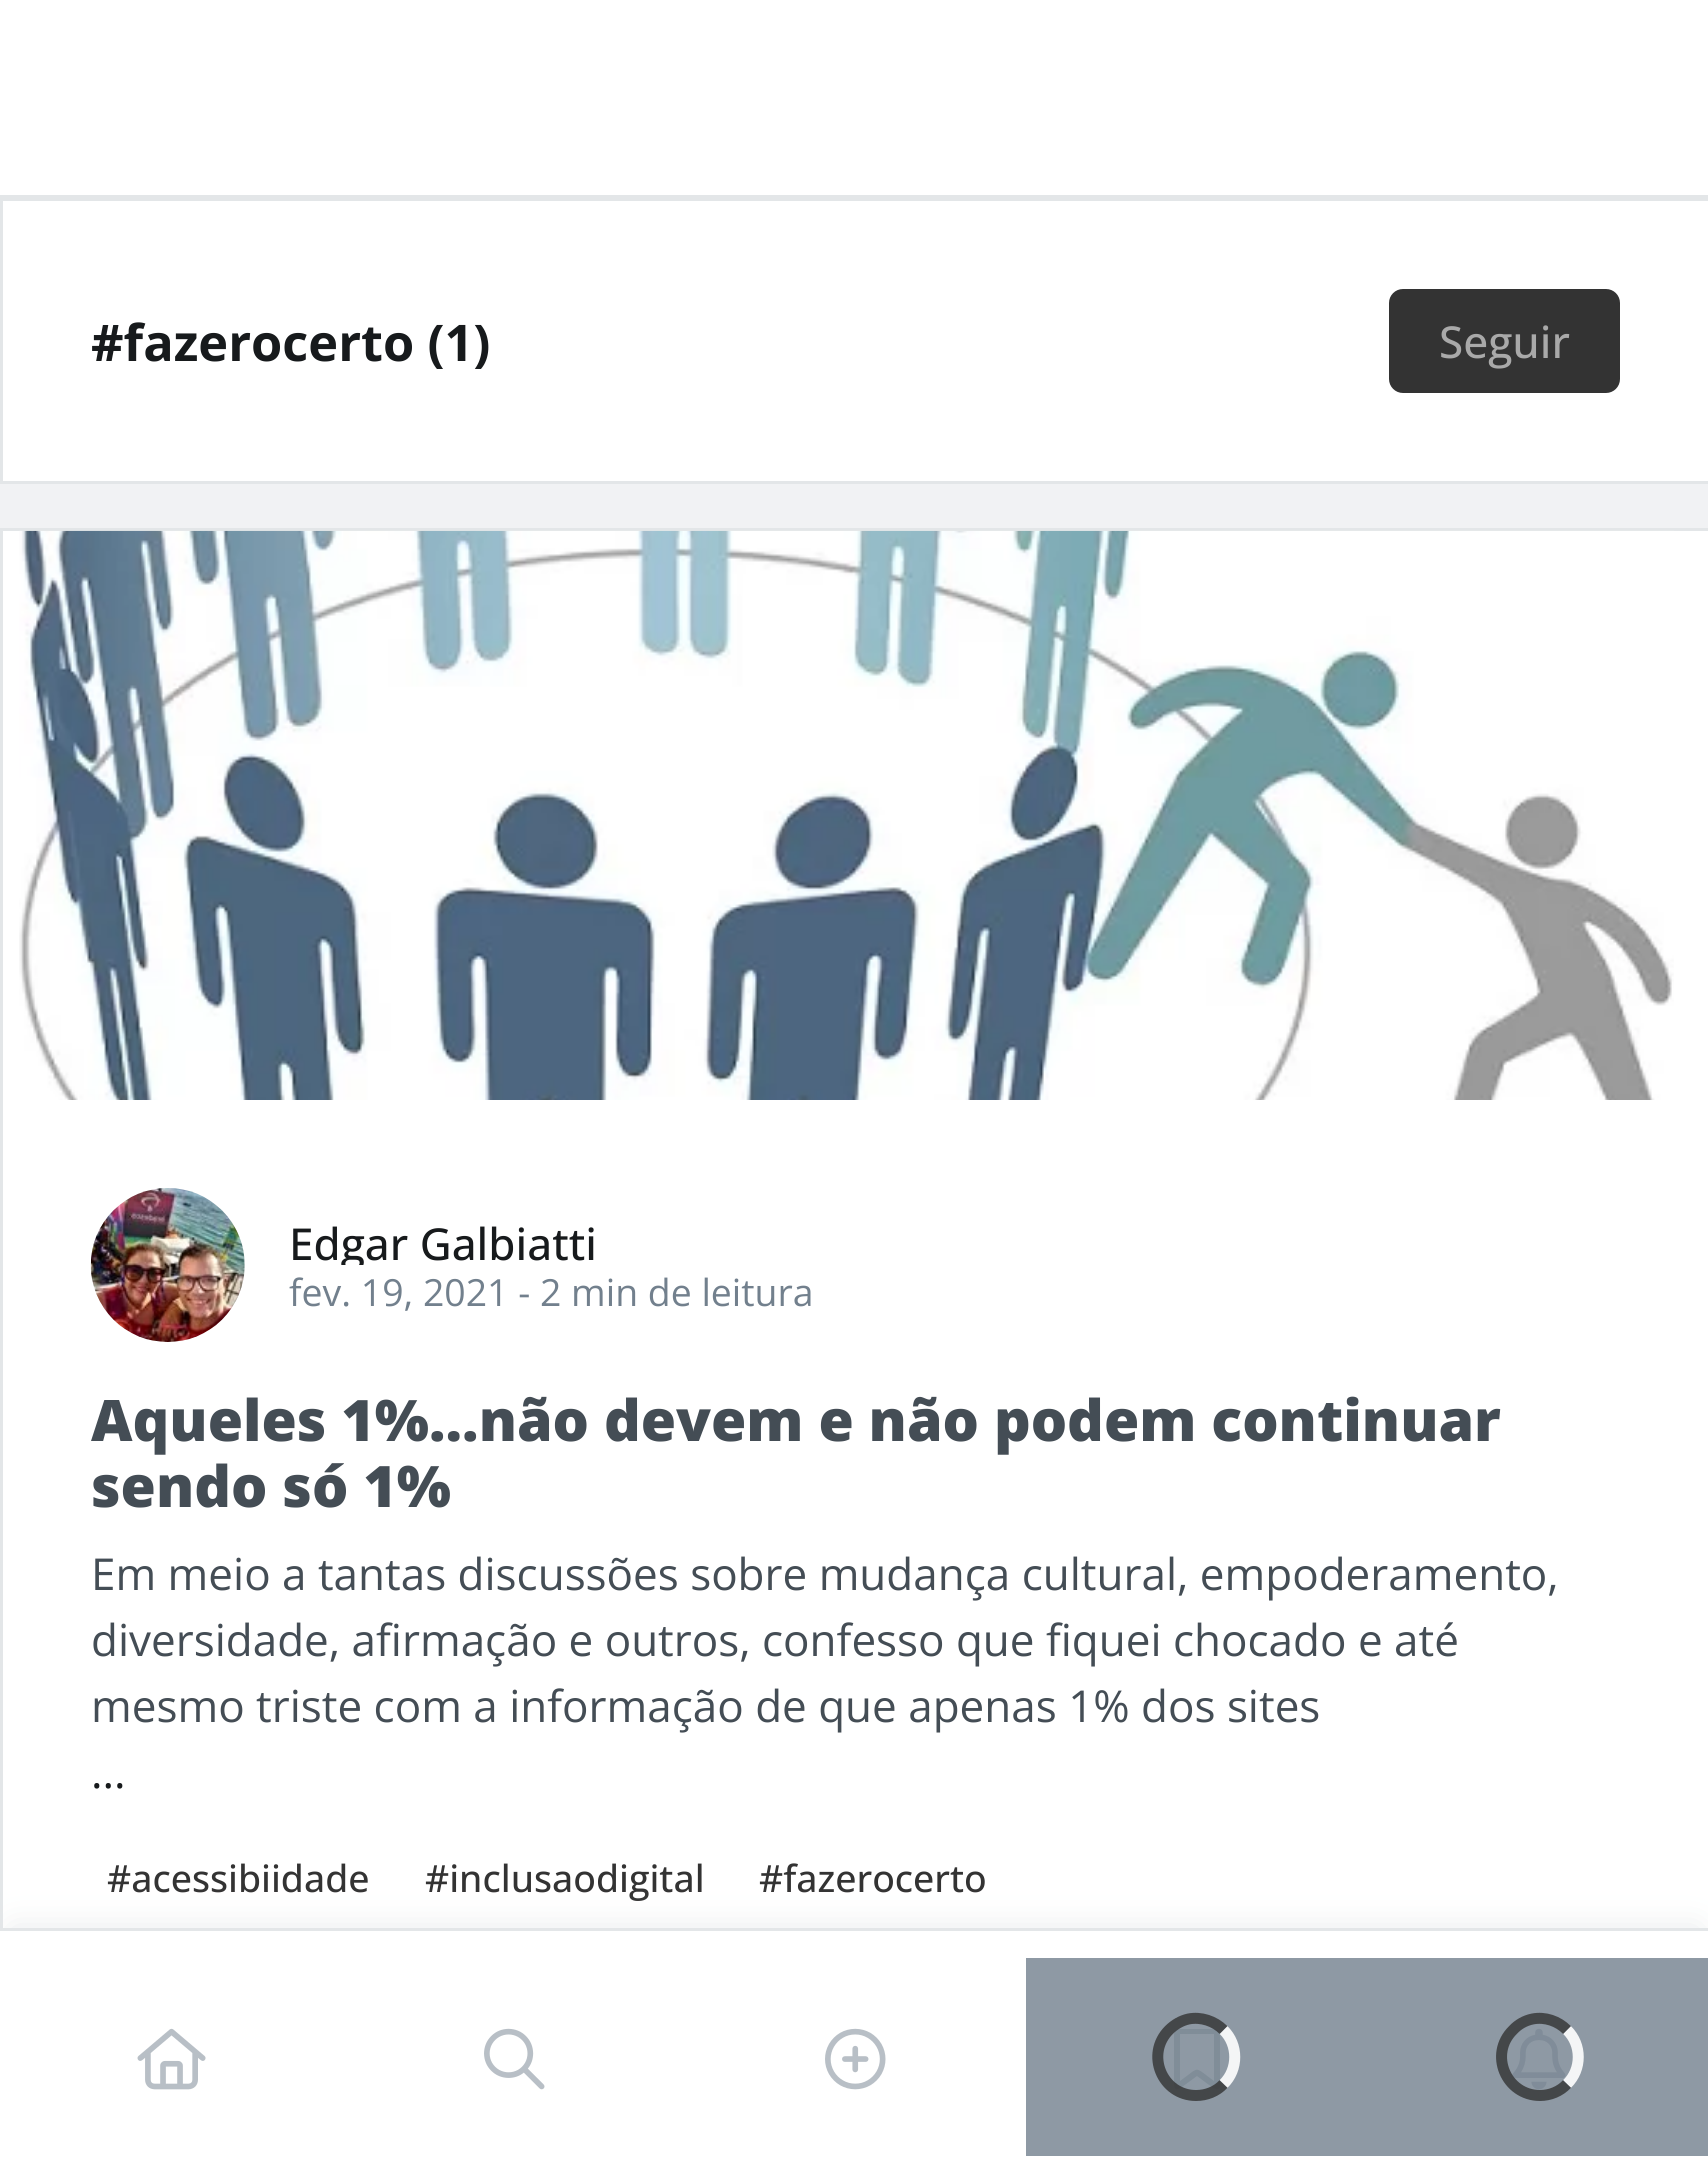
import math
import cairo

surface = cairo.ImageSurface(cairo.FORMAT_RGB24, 1708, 2179)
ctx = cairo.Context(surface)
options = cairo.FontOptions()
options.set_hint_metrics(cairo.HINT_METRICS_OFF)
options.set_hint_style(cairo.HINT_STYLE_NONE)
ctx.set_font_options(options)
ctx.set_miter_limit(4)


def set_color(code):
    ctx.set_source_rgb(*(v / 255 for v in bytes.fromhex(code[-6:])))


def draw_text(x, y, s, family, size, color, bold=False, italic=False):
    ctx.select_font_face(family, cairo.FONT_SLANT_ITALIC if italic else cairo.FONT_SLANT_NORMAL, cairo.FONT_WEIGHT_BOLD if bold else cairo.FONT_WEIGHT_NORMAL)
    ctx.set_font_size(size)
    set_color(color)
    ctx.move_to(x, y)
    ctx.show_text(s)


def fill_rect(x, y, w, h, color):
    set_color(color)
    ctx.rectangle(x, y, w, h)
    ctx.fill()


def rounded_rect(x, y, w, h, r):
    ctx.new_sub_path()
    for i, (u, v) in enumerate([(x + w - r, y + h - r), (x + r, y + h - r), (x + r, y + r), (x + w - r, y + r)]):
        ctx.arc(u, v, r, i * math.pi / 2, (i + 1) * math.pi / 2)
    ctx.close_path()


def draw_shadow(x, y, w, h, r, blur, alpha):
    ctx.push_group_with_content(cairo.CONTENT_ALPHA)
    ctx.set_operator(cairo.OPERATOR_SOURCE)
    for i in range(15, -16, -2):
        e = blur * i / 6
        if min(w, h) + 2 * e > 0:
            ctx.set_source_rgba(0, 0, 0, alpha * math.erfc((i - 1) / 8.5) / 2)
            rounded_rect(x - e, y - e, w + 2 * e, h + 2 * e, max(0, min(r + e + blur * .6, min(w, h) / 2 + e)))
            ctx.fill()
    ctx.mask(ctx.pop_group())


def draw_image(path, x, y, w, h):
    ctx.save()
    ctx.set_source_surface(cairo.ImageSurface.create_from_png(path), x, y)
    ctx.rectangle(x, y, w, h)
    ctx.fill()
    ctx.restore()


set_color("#f1f2f4")
ctx.paint()
fill_rect(0, 0, 1708, 195, "#ffffff")
fill_rect(0, 195, 1708, 3, "#e3e6e8")
set_color("#ffffff")
ctx.rectangle(1.5, 199.5, 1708, 283)
ctx.fill_preserve()
set_color("#e3e6e8")
ctx.set_line_width(3)
ctx.stroke()
draw_text(91, 361, "#fazerocerto (1)", "Open Sans", 50.5, "#171a1c", bold=True)
set_color("#333333")
rounded_rect(1392, 292, 225, 98, 11)
ctx.fill_preserve()
ctx.set_line_width(6)
ctx.stroke()
draw_text(1439, 358, "Seguir", "Open Sans Medium", 44, "#a9a9a9")
fill_rect(3, 531, 1705, 1397, "#ffffff")
ctx.rectangle(1.5, 529.5, 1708, 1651)
set_color("#e3e6e8")
ctx.set_line_width(3)
ctx.stroke()
draw_image("assets/img1.png", 19, 530, 1655, 570)
draw_image("assets/img2.png", 90, 1188, 155, 154)
ctx.save()
ctx.rectangle(289, 1210, 525, 55)
ctx.clip()
draw_text(289, 1260, "Edgar Galbiatti", "Open Sans Medium", 44, "#171a1c")
ctx.restore()
draw_text(289, 1306, "fev. 19, 2021 - 2 min de leitura", "Open Sans", 37.4, "#72808d")
draw_text(91, 1441, "Aqueles 1%...não devem e não podem continuar", "Open Sans ExtraBold", 57.2, "#444d55")
draw_text(91, 1507, "sendo só 1%", "Open Sans ExtraBold", 57.2, "#444d55")
draw_text(91, 1590, "Em meio a tantas discussões sobre mudança cultural, empoderamento,", "Open Sans", 44, "#444d55")
draw_text(91, 1656, "diversidade, afirmação e outros, confesso que fiquei chocado e até", "Open Sans", 44, "#444d55")
draw_text(91, 1722, "mesmo triste com a informação de que apenas 1% dos sites", "Open Sans", 44, "#444d55")
draw_text(91, 1788, "...", "Open Sans", 44, "#171a1c")
draw_text(107, 1892, "#acessibiidade", "Open Sans Medium", 37.4, "#333333")
draw_text(425, 1892, "#inclusaodigital", "Open Sans Medium", 37.4, "#333333")
draw_text(759, 1892, "#fazerocerto", "Open Sans Medium", 37.4, "#333333")
set_color("#e3e6e8")
draw_shadow(14, 1931, 1683, 225, 0, 16.5, 1)
fill_rect(0, 1931, 1708, 248, "#ffffff")
fill_rect(1026, 1958, 682, 198, "#8e99a4")
fill_rect(0, 1928, 1708, 3, "#e3e6e8")
draw_image("assets/img3.png", 137, 2028, 69, 62)
draw_image("assets/img4.png", 484, 2028, 61, 62)
draw_image("assets/img5.png", 825, 2028, 61, 62)
set_color("#808d98")
ctx.new_path()
ctx.move_to(1174, 2034)
ctx.curve_to(1174, 2031, 1177, 2029, 1180, 2029)
ctx.line_to(1180, 2081)
ctx.curve_to(1201, 2066, 1193, 2066, 1214, 2081)
ctx.line_to(1214, 2034)
ctx.line_to(1180, 2034)
ctx.line_to(1180, 2029)
ctx.line_to(1208, 2029)
ctx.curve_to(1221, 2029, 1220, 2031, 1220, 2043)
ctx.line_to(1220, 2087)
ctx.curve_to(1218, 2093, 1210, 2085, 1209, 2085)
ctx.line_to(1197, 2076)
ctx.line_to(1182, 2087)
ctx.curve_to(1173, 2093, 1174, 2086, 1174, 2078)
ctx.close_path()
ctx.fill()
ctx.new_path()
ctx.move_to(1223.5, 2030)
ctx.curve_to(1238.5, 2044.5, 1238.5, 2069.5, 1223.5, 2084)
set_color("#f4f5f6")
ctx.set_line_width(11)
ctx.stroke()
ctx.new_path()
ctx.move_to(1223.5, 2084)
ctx.curve_to(1216.5, 2091.5, 1206.5, 2095.5, 1196, 2095.5)
ctx.curve_to(1162, 2095.5, 1145, 2054, 1169, 2030)
ctx.curve_to(1174.5, 2024.5, 1181.5, 2020.5, 1188.5, 2019)
ctx.curve_to(1201, 2016.5, 1214.5, 2021, 1223.5, 2030)
ctx.set_source_rgba(0.2, 0.2, 0.2, 0.8)
ctx.stroke()
draw_image("assets/img6.png", 1512, 2028, 54, 62)
ctx.new_path()
ctx.move_to(1567, 2030)
ctx.curve_to(1582, 2044.5, 1582, 2069.5, 1567, 2084)
set_color("#f4f5f6")
ctx.stroke()
ctx.new_path()
ctx.move_to(1567, 2084)
ctx.curve_to(1560, 2091.5, 1550, 2095.5, 1540, 2095.5)
ctx.curve_to(1506, 2095.5, 1488.5, 2054, 1513, 2030)
ctx.curve_to(1518, 2024.5, 1525, 2020.5, 1532.5, 2019)
ctx.curve_to(1545, 2016.5, 1558, 2021, 1567, 2030)
ctx.set_source_rgba(0.2, 0.2, 0.2, 0.8)
ctx.stroke()
surface.write_to_png("output.png")
